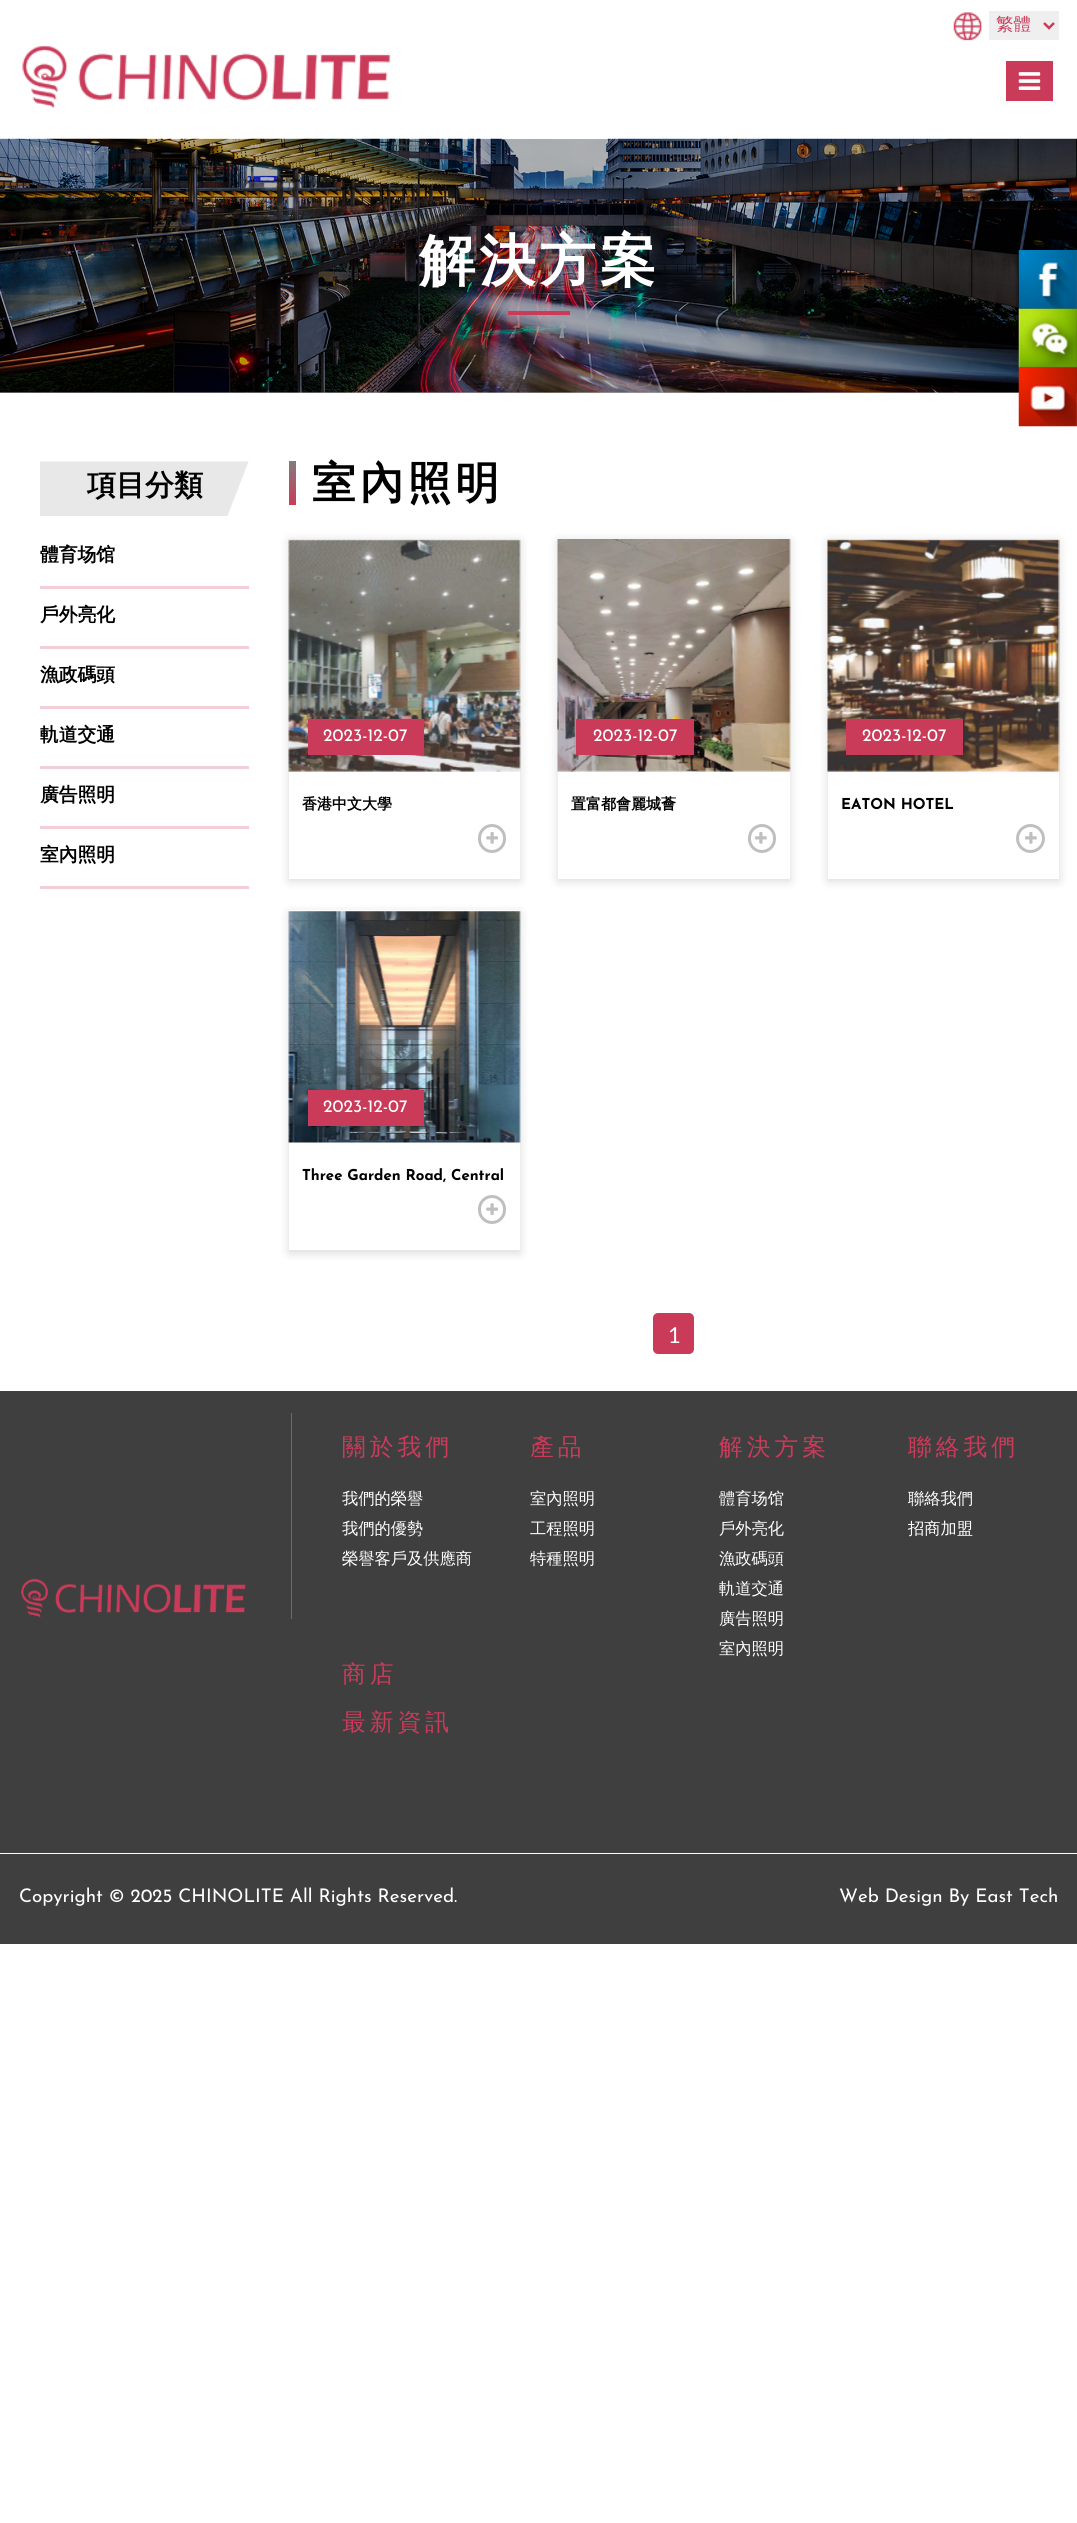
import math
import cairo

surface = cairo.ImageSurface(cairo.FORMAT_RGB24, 1077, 2523)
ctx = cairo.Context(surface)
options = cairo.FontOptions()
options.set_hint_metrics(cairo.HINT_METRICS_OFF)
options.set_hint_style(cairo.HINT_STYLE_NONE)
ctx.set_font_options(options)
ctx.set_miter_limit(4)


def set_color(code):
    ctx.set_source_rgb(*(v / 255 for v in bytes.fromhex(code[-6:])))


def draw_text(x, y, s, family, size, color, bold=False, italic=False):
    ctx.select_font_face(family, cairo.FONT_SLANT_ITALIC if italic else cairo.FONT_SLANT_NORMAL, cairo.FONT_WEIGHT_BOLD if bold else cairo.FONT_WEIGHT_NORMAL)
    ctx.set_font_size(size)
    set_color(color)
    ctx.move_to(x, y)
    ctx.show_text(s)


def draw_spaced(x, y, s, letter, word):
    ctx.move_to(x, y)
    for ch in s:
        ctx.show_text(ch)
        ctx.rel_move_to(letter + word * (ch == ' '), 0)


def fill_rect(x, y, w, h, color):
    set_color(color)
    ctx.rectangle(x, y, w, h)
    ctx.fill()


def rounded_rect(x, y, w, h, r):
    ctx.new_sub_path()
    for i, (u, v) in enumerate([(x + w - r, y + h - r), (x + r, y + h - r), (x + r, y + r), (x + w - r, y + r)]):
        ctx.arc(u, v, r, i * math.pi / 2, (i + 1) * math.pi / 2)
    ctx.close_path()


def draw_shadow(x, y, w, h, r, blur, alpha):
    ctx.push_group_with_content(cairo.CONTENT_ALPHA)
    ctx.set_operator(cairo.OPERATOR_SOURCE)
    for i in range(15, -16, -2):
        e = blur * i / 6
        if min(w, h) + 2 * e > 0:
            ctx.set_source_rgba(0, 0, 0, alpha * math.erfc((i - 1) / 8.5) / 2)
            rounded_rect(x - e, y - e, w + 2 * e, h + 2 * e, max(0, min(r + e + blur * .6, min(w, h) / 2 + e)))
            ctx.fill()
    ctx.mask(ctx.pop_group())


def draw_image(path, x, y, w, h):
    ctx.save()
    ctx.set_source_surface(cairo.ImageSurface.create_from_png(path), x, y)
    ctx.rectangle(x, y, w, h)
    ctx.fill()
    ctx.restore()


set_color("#ffffff")
ctx.paint()
fill_rect(0, 392, 1077, 1, "#b3b3b3")
draw_image("assets/img1.png", 953, 12, 29, 29)
fill_rect(989, 11, 70, 29, "#efefef")
ctx.new_path()
ctx.move_to(1044, 23)
ctx.line_to(1049, 28)
ctx.line_to(1054, 23)
set_color("#ca3b5a")
ctx.set_line_width(2.5)
ctx.stroke()
draw_text(996, 30, "繁體", "WenQuanYi Zen Hei Medium", 17.5, "#ca3b5a")
fill_rect(1006, 61, 47, 40, "#ca3b5a")
draw_image("assets/img2.png", 1018, 72, 23, 18)
draw_image("assets/img3.png", 22, 46, 369, 62)
draw_image("assets/img4.png", 0, 138, 1077, 255)
ctx.select_font_face("WenQuanYi Zen Hei", cairo.FONT_SLANT_NORMAL, cairo.FONT_WEIGHT_BOLD)
ctx.set_font_size(56.25)
set_color("#ffffff")
draw_spaced(419, 280, "解決方案", 4, 0)
fill_rect(508, 311, 62, 4, "#ca3b5a")
draw_image("assets/img5.png", 1018, 250, 59, 59)
draw_image("assets/img6.png", 1018, 308, 59, 60)
draw_image("assets/img7.png", 1018, 367, 59, 60)
draw_image("assets/img8.png", 40, 461, 209, 55)
draw_text(87, 495, "項目分類", "WenQuanYi Zen Hei", 29, "#000000", bold=True)
fill_rect(40, 586, 209, 3, "#f2cfd7")
draw_text(40, 561, "體育场馆", "WenQuanYi Zen Hei", 18.75, "#000000", bold=True)
fill_rect(40, 646, 209, 3, "#f2cfd7")
draw_text(40, 621, "戶外亮化", "WenQuanYi Zen Hei", 18.75, "#000000", bold=True)
fill_rect(40, 706, 209, 3, "#f2cfd7")
draw_text(40, 681, "漁政碼頭", "WenQuanYi Zen Hei", 18.75, "#000000", bold=True)
fill_rect(40, 766, 209, 3, "#f2cfd7")
draw_text(40, 741, "軌道交通", "WenQuanYi Zen Hei", 18.75, "#000000", bold=True)
fill_rect(40, 826, 209, 3, "#f2cfd7")
draw_text(40, 801, "廣告照明", "WenQuanYi Zen Hei", 18.75, "#000000", bold=True)
fill_rect(40, 886, 209, 3, "#f2cfd7")
draw_text(40, 861, "室內照明", "WenQuanYi Zen Hei", 18.75, "#000000", bold=True)
gradient = cairo.LinearGradient(293, 461, 293, 505)
gradient.add_color_stop_rgba(0, 0.51, 0.486, 0.486, 1)
gradient.add_color_stop_rgba(1, 0.792, 0.231, 0.353, 1)
ctx.set_source(gradient)
ctx.rectangle(289, 461, 7, 44)
ctx.fill()
ctx.set_font_size(43.75)
set_color("#000000")
draw_spaced(312, 498, "室內照明", 4, 0)
set_color("#000000")
draw_shadow(289, 541, 231, 340, 0, 5, 0.15)
fill_rect(289, 539, 231, 340, "#ffffff")
draw_image("assets/img9.png", 288, 539, 233, 233)
fill_rect(308, 719, 116, 36, "#ca3b5a")
draw_text(323, 741, "2023-12-07", "Josefin Sans", 17.5, "#ffffff")
draw_text(302, 809, "香港中文大學", "WenQuanYi Zen Hei", 15, "#000000", bold=True)
rounded_rect(479.5, 825.5, 25, 26, 12.5)
set_color("#bfbfbf")
ctx.set_line_width(3)
ctx.stroke()
draw_image("assets/img10.png", 486, 831, 12, 13)
set_color("#000000")
draw_shadow(558, 541, 232, 340, 0, 5, 0.15)
fill_rect(558, 539, 232, 340, "#ffffff")
draw_image("assets/img11.png", 557, 539, 234, 233)
fill_rect(576, 719, 118, 36, "#ca3b5a")
draw_text(593, 741, "2023-12-07", "Josefin Sans", 17.5, "#ffffff")
draw_text(571, 809, "置富都會麗城薈", "WenQuanYi Zen Hei", 15, "#000000", bold=True)
rounded_rect(749.5, 825.5, 25, 26, 12.5)
set_color("#bfbfbf")
ctx.stroke()
draw_image("assets/img12.png", 755, 831, 12, 13)
set_color("#000000")
draw_shadow(828, 541, 231, 340, 0, 5, 0.15)
fill_rect(828, 539, 231, 340, "#ffffff")
draw_image("assets/img13.png", 827, 539, 233, 233)
fill_rect(846, 719, 117, 36, "#ca3b5a")
draw_text(862, 741, "2023-12-07", "Josefin Sans", 17.5, "#ffffff")
draw_text(841, 809, "EATON HOTEL", "Josefin Sans", 15, "#000000", bold=True)
ctx.new_path()
ctx.arc(1030.5, 838.5, 13, 0, 2 * math.pi)
set_color("#bfbfbf")
ctx.stroke()
draw_image("assets/img12.png", 1025, 831, 12, 13)
ctx.save()
ctx.set_fill_rule(cairo.FILL_RULE_EVEN_ODD)
ctx.new_path()
ctx.move_to(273, 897)
ctx.line_to(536, 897)
ctx.line_to(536, 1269)
ctx.line_to(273, 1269)
ctx.close_path()
ctx.move_to(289, 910)
ctx.line_to(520, 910)
ctx.line_to(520, 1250)
ctx.line_to(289, 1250)
ctx.close_path()
ctx.clip()
set_color("#000000")
draw_shadow(289, 913, 231, 340, 0, 5, 0.15)
ctx.restore()
draw_image("assets/img14.png", 288, 911, 233, 232)
fill_rect(308, 1090, 116, 36, "#ca3b5a")
draw_text(323, 1112, "2023-12-07", "Josefin Sans", 17.5, "#ffffff")
draw_text(302, 1180, "Three Garden Road, Central", "Josefin Sans", 15, "#000000", bold=True)
rounded_rect(479.5, 1196.5, 25, 26, 12.5)
set_color("#bfbfbf")
ctx.stroke()
draw_image("assets/img15.png", 486, 1203, 12, 12)
set_color("#ca3b5a")
rounded_rect(653, 1313, 41, 41, 5)
ctx.fill()
draw_text(668, 1343, "1", "Lato", 22, "#ffffff")
fill_rect(0, 1391, 1077, 553, "#3f3f3f")
draw_image("assets/img16.png", 21, 1579, 225, 39)
fill_rect(291, 1413, 1, 206, "#ca3b5a")
ctx.select_font_face("WenQuanYi Zen Hei Medium")
ctx.set_font_size(23.75)
draw_spaced(342, 1455, "關於我們", 4, 0)
draw_text(342, 1504, "我們的榮譽", "WenQuanYi Zen Hei Medium", 16.25, "#ffffff")
draw_text(342, 1534, "我們的優勢", "WenQuanYi Zen Hei Medium", 16.25, "#ffffff")
draw_text(342, 1564, "榮譽客戶及供應商", "WenQuanYi Zen Hei Medium", 16.25, "#ffffff")
ctx.set_font_size(23.75)
set_color("#ca3b5a")
draw_spaced(530, 1455, "產品", 4, 0)
draw_text(530, 1504, "室內照明", "WenQuanYi Zen Hei Medium", 16.25, "#ffffff")
draw_text(530, 1534, "工程照明", "WenQuanYi Zen Hei Medium", 16.25, "#ffffff")
draw_text(530, 1564, "特種照明", "WenQuanYi Zen Hei Medium", 16.25, "#ffffff")
ctx.set_font_size(23.75)
set_color("#ca3b5a")
draw_spaced(719, 1455, "解決方案", 4, 0)
draw_text(719, 1504, "體育场馆", "WenQuanYi Zen Hei Medium", 16.25, "#ffffff")
draw_text(719, 1534, "戶外亮化", "WenQuanYi Zen Hei Medium", 16.25, "#ffffff")
draw_text(719, 1564, "漁政碼頭", "WenQuanYi Zen Hei Medium", 16.25, "#ffffff")
draw_text(719, 1594, "軌道交通", "WenQuanYi Zen Hei Medium", 16.25, "#ffffff")
draw_text(719, 1624, "廣告照明", "WenQuanYi Zen Hei Medium", 16.25, "#ffffff")
draw_text(719, 1654, "室內照明", "WenQuanYi Zen Hei Medium", 16.25, "#ffffff")
ctx.set_font_size(23.75)
set_color("#ca3b5a")
draw_spaced(908, 1455, "聯絡我們", 4, 0)
draw_text(908, 1504, "聯絡我們", "WenQuanYi Zen Hei Medium", 16.25, "#ffffff")
draw_text(908, 1534, "招商加盟", "WenQuanYi Zen Hei Medium", 16.25, "#ffffff")
ctx.set_font_size(23.75)
set_color("#ca3b5a")
draw_spaced(342, 1682, "商店", 4, 0)
draw_spaced(342, 1730, "最新資訊", 4, 0)
fill_rect(0, 1853, 1077, 1, "#ffffff")
draw_text(19, 1902, "Copyright © 2025 CHINOLITE All Rights Reserved.", "Josefin Sans", 18.75, "#ffffff")
draw_text(839, 1902, "Web Design By East Tech", "Josefin Sans", 18.75, "#ffffff")
surface.write_to_png("output.png")
